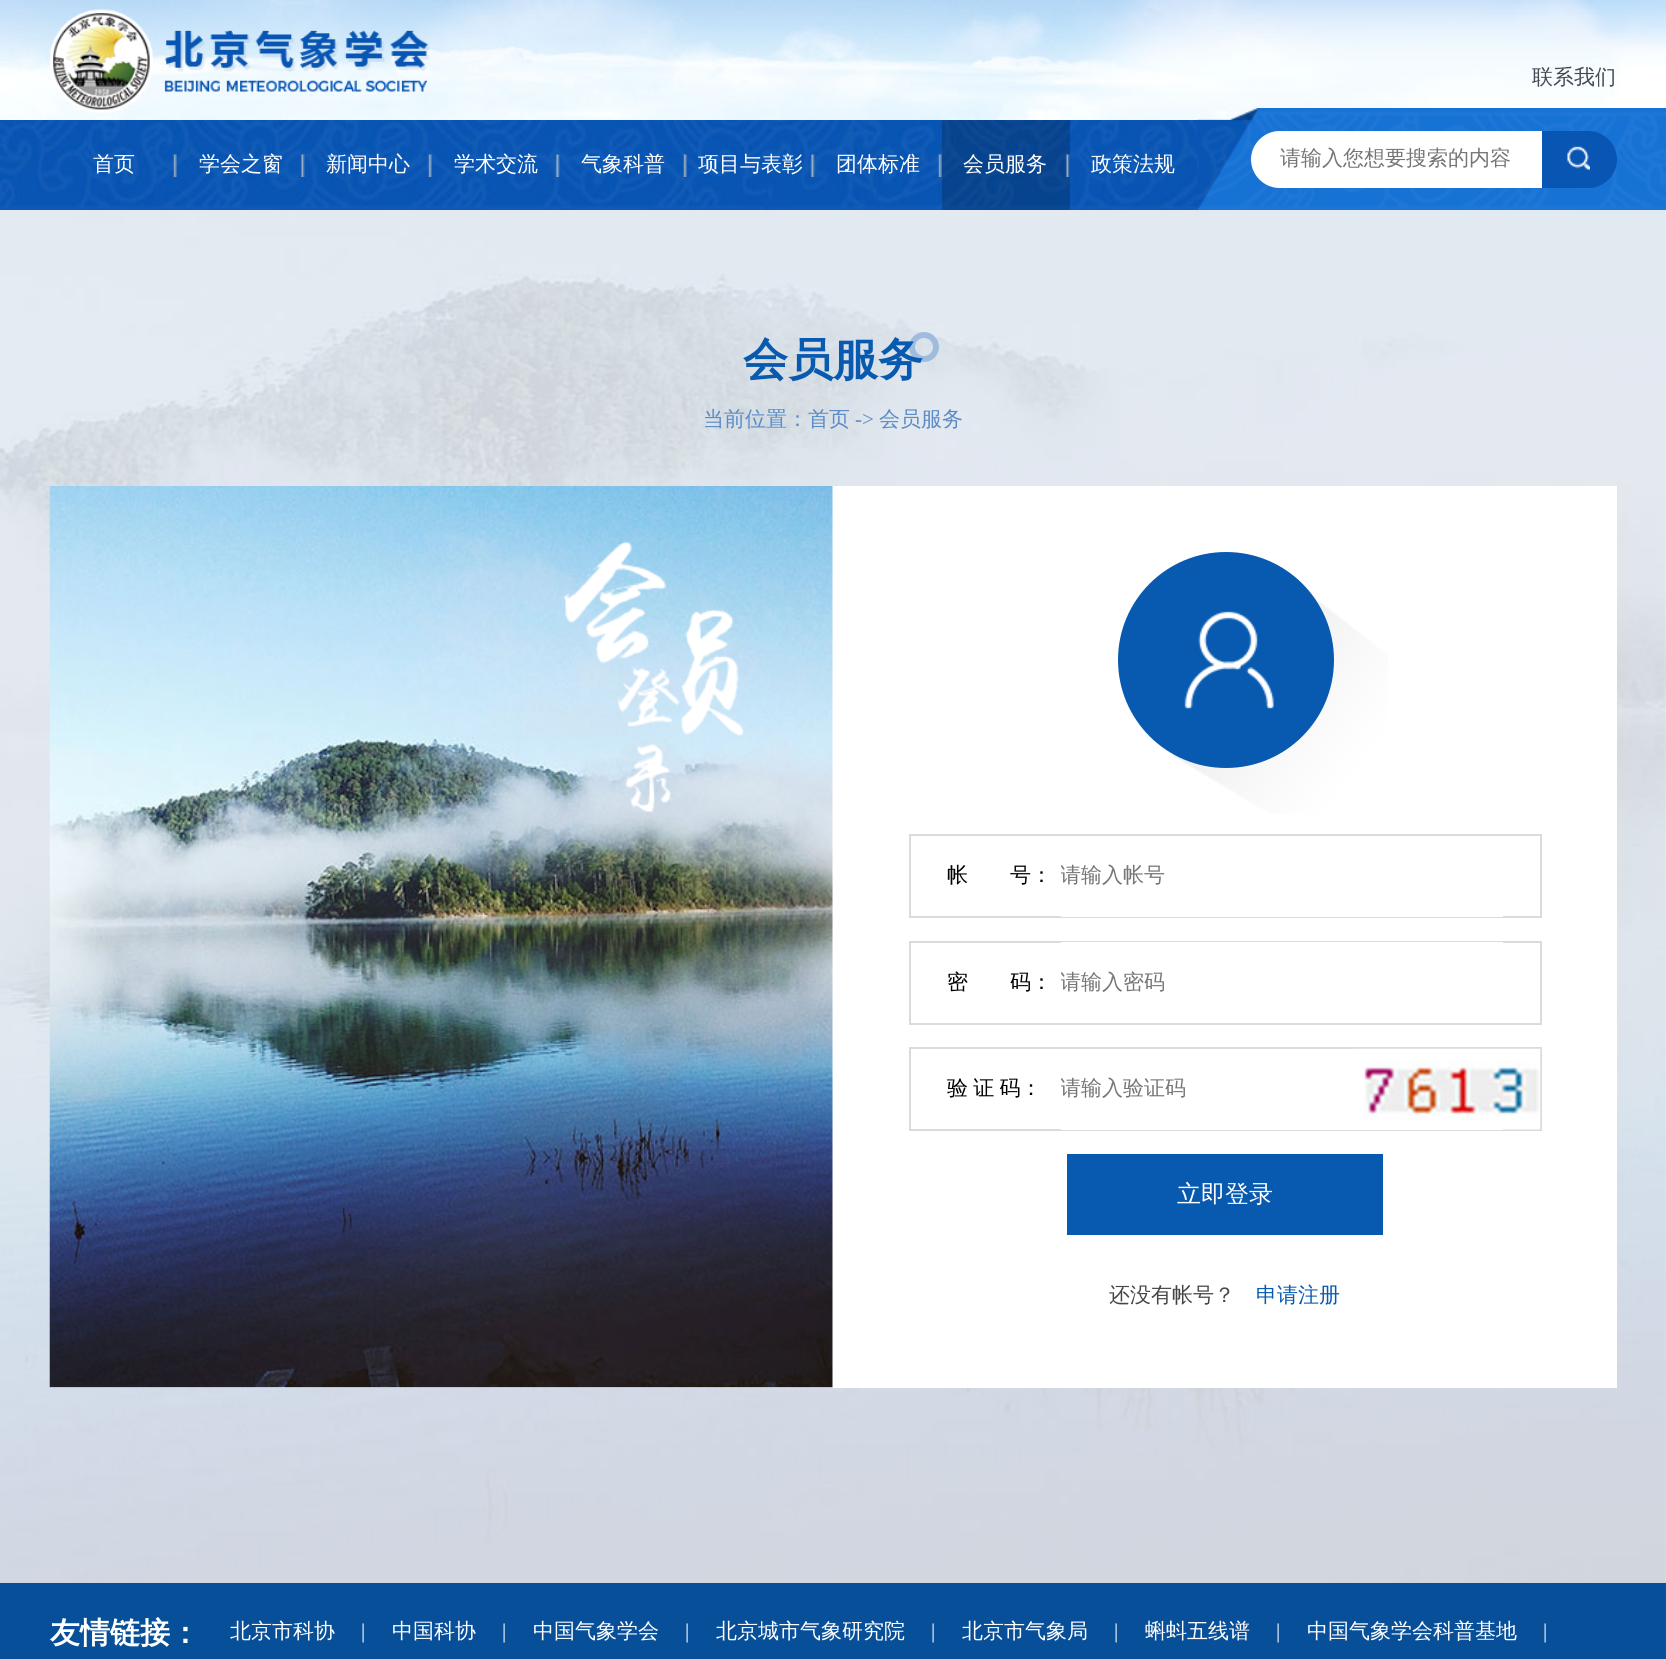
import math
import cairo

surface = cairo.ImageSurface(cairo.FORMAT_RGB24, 1666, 1659)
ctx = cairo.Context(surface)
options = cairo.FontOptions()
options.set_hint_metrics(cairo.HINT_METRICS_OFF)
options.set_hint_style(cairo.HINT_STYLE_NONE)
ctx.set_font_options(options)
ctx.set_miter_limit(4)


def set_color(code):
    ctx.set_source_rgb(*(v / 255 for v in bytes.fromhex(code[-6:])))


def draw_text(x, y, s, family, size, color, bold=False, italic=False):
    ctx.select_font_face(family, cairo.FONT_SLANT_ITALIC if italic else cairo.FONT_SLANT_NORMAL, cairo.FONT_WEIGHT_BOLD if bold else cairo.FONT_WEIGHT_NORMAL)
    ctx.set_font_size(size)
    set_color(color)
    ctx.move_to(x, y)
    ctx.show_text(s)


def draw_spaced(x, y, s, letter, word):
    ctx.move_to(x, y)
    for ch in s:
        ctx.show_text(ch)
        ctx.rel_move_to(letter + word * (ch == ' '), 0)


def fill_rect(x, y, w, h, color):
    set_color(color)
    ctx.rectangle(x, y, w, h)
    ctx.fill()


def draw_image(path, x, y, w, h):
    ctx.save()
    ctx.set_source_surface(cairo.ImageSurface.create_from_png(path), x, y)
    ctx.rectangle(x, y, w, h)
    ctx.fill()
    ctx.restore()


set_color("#ffffff")
ctx.paint()
draw_image("assets/img1.png", 0, 0, 1666, 120)
draw_image("assets/img2.png", 49, 9, 381, 104)
draw_text(1532, 84, "联系我们", "WenQuanYi Zen Hei Medium", 21, "#434955")
draw_image("assets/img3.png", 0, 120, 1234, 90)
draw_image("assets/img4.png", 1197, 108, 469, 102)
draw_image("assets/img5.png", 172, 154, 5, 23)
draw_text(93, 171, "首页", "WenQuanYi Zen Hei Medium", 21, "#ffffff")
draw_image("assets/img6.png", 300, 154, 5, 23)
draw_text(199, 171, "学会之窗", "WenQuanYi Zen Hei Medium", 21, "#ffffff")
draw_image("assets/img7.png", 427, 154, 5, 23)
draw_text(326, 171, "新闻中心", "WenQuanYi Zen Hei Medium", 21, "#ffffff")
draw_image("assets/img8.png", 555, 154, 5, 23)
draw_text(454, 171, "学术交流", "WenQuanYi Zen Hei Medium", 21, "#ffffff")
draw_image("assets/img9.png", 682, 154, 5, 23)
draw_text(581, 171, "气象科普", "WenQuanYi Zen Hei Medium", 21, "#ffffff")
draw_image("assets/img10.png", 810, 154, 5, 23)
draw_text(698, 171, "项目与表彰", "WenQuanYi Zen Hei Medium", 21, "#ffffff")
draw_image("assets/img11.png", 937, 154, 5, 23)
draw_text(836, 171, "团体标准", "WenQuanYi Zen Hei Medium", 21, "#ffffff")
ctx.set_source_rgba(0, 0, 0, 0.2)
ctx.rectangle(942, 120, 128, 90)
ctx.fill()
draw_image("assets/img12.png", 1065, 154, 5, 23)
draw_text(963, 171, "会员服务", "WenQuanYi Zen Hei Medium", 21, "#ffffff")
draw_text(1091, 171, "政策法规", "WenQuanYi Zen Hei Medium", 21, "#ffffff")
ctx.new_path()
ctx.move_to(1279.5, 131)
ctx.line_to(1542, 131)
ctx.line_to(1542, 188)
ctx.line_to(1279.5, 188)
ctx.curve_to(1264, 188, 1251, 175, 1251, 159.5)
ctx.curve_to(1251, 144, 1264, 131, 1279.5, 131)
ctx.close_path()
ctx.fill()
draw_text(1280, 165, "请输入您想要搜索的内容", "WenQuanYi Zen Hei Medium", 21, "#757575")
set_color("#0855b3")
ctx.new_path()
ctx.move_to(1542, 131)
ctx.line_to(1588.5, 131)
ctx.curve_to(1604, 131, 1617, 144, 1617, 159.5)
ctx.curve_to(1617, 175, 1604, 188, 1588.5, 188)
ctx.line_to(1542, 188)
ctx.close_path()
ctx.fill()
draw_image("assets/img13.png", 1567, 146, 23, 24)
draw_image("assets/img14.png", 0, 210, 1666, 1373)
ctx.arc(924, 347, 12, 0, 2 * math.pi)
set_color("#9fbcde")
ctx.set_line_width(6)
ctx.stroke()
draw_text(743, 375, "会员服务", "WenQuanYi Zen Hei", 45, "#085ab0", bold=True)
draw_text(703, 426, "当前位置：首页", "WenQuanYi Zen Hei Medium", 21, "#5a8bc6")
draw_text(855, 426, "->", "Liberation Serif", 21, "#5a8bc6")
draw_text(879, 426, "会员服务", "WenQuanYi Zen Hei Medium", 21, "#5a8bc6")
fill_rect(50, 486, 1567, 902, "#ffffff")
draw_image("assets/img15.png", 49, 486, 784, 902)
draw_image("assets/img16.png", 563, 541, 181, 272)
draw_image("assets/img17.png", 1173, 592, 215, 222)
set_color("#085ab0")
ctx.arc(1226, 660, 108, 0, 2 * math.pi)
ctx.fill()
draw_image("assets/img18.png", 1184, 611, 90, 98)
ctx.rectangle(910, 835, 631, 82)
set_color("#dbdbdb")
ctx.set_line_width(2)
ctx.stroke()
draw_text(947, 882, "帐　　号：", "WenQuanYi Zen Hei Medium", 21, "#000000")
fill_rect(1061, 916, 442, 1, "#ffffff")
ctx.save()
ctx.rectangle(1061, 863, 442, 27)
ctx.clip()
draw_text(1060, 882, "请输入帐号", "WenQuanYi Zen Hei Medium", 21, "#757575")
ctx.restore()
ctx.rectangle(910, 942, 631, 82)
set_color("#dbdbdb")
ctx.stroke()
draw_text(947, 989, "密　　码：", "WenQuanYi Zen Hei Medium", 21, "#000000")
fill_rect(1061, 942, 442, 1, "#ffffff")
ctx.save()
ctx.rectangle(1061, 969, 442, 27)
ctx.clip()
draw_text(1060, 989, "请输入密码", "WenQuanYi Zen Hei Medium", 21, "#757575")
ctx.restore()
ctx.rectangle(910, 1048, 631, 82)
set_color("#dbdbdb")
ctx.stroke()
set_color("#000000")
draw_spaced(947, 1095, "验 证 码：", 0, -1)
fill_rect(1061, 1129, 442, 1, "#ffffff")
ctx.save()
ctx.rectangle(1061, 1076, 442, 27)
ctx.clip()
draw_text(1060, 1095, "请输入验证码", "WenQuanYi Zen Hei Medium", 21, "#757575")
ctx.restore()
draw_image("assets/img19.png", 1353, 1048, 188, 82)
fill_rect(1067, 1154, 316, 81, "#085ab0")
draw_text(1177, 1202, "立即登录", "WenQuanYi Zen Hei Medium", 24, "#ffffff")
draw_text(1109, 1302, "还没有帐号？", "WenQuanYi Zen Hei Medium", 21, "#454545")
draw_text(1256, 1302, "申请注册", "WenQuanYi Zen Hei Medium", 21, "#085ab0")
fill_rect(0, 1583, 1666, 76, "#084f99")
draw_text(50, 1643, "友情链接：", "WenQuanYi Zen Hei", 30, "#ffffff", bold=True)
draw_text(230, 1638, "北京市科协", "WenQuanYi Zen Hei Medium", 21, "#ffffff")
draw_text(361, 1638, "|", "Liberation Serif", 21, "#ffffff")
draw_text(392, 1638, "中国科协", "WenQuanYi Zen Hei Medium", 21, "#ffffff")
draw_text(502, 1638, "|", "Liberation Serif", 21, "#ffffff")
draw_text(533, 1638, "中国气象学会", "WenQuanYi Zen Hei Medium", 21, "#ffffff")
draw_text(685, 1638, "|", "Liberation Serif", 21, "#ffffff")
draw_text(716, 1638, "北京城市气象研究院", "WenQuanYi Zen Hei Medium", 21, "#ffffff")
draw_text(931, 1638, "|", "Liberation Serif", 21, "#ffffff")
draw_text(962, 1638, "北京市气象局", "WenQuanYi Zen Hei Medium", 21, "#ffffff")
draw_text(1114, 1638, "|", "Liberation Serif", 21, "#ffffff")
draw_text(1145, 1638, "蝌蚪五线谱", "WenQuanYi Zen Hei Medium", 21, "#ffffff")
draw_text(1276, 1638, "|", "Liberation Serif", 21, "#ffffff")
draw_text(1307, 1638, "中国气象学会科普基地", "WenQuanYi Zen Hei Medium", 21, "#ffffff")
draw_text(1543, 1638, "|", "Liberation Serif", 21, "#ffffff")
surface.write_to_png("output.png")
